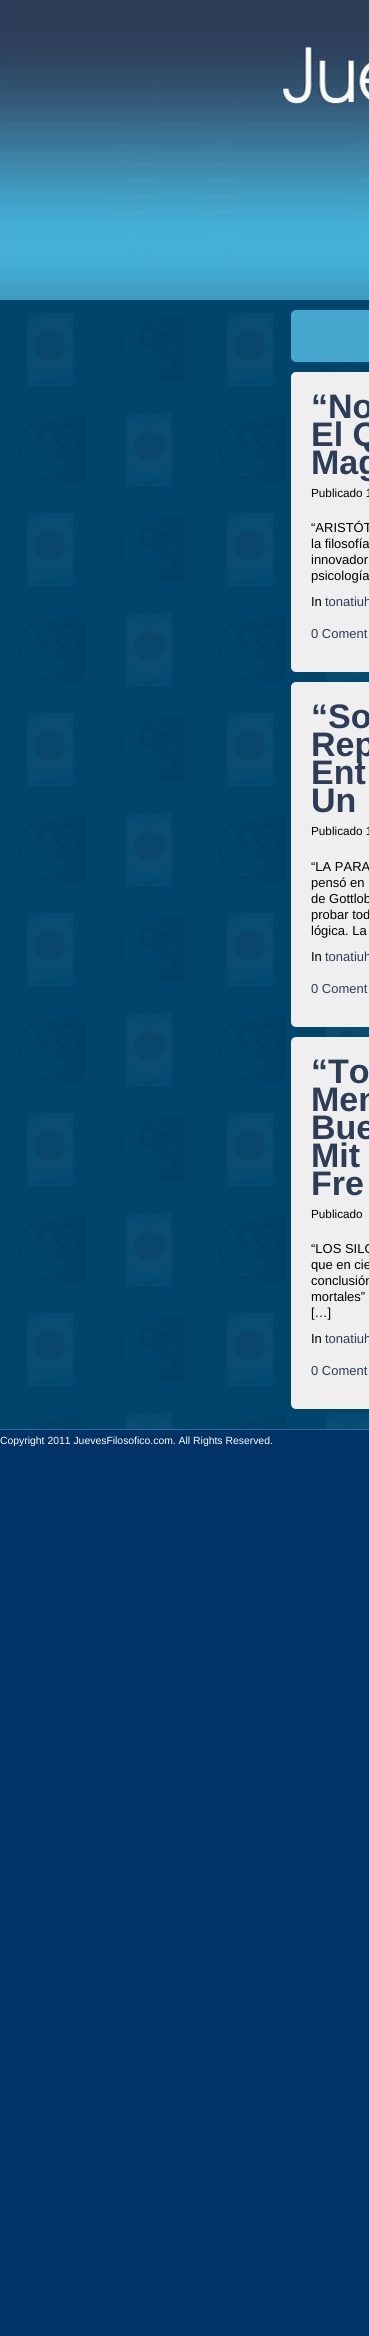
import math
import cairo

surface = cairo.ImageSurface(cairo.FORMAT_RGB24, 369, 2336)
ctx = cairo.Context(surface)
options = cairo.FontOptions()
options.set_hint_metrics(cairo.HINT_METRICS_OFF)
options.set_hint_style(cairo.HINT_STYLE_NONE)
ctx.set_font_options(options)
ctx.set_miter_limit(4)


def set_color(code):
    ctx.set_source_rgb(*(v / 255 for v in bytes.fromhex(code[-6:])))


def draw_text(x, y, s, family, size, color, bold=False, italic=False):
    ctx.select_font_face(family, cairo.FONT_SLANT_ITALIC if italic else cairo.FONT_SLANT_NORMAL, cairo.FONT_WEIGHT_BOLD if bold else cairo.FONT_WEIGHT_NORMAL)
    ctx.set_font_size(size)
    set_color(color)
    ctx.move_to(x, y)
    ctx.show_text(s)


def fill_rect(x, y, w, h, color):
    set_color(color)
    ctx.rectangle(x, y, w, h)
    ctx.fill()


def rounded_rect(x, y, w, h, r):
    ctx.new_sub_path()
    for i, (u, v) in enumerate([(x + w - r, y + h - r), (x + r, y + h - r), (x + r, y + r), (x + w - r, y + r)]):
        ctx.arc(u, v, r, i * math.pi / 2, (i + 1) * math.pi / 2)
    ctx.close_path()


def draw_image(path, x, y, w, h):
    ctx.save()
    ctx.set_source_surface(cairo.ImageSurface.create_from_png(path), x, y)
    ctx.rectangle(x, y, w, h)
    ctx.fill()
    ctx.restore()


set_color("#013366")
ctx.paint()
draw_image("assets/img1.png", 0, 0, 369, 300)
draw_image("assets/img2.png", 0, 300, 369, 1129)
set_color("#45a7cd")
rounded_rect(291, 310, 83, 52, 5)
ctx.fill()
set_color("#efefef")
rounded_rect(291, 372, 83, 300, 5)
ctx.fill()
draw_text(311, 418, "“No", "Liberation Sans", 34, "#2d3c57", bold=True)
draw_text(311, 446, "El Q", "Liberation Sans", 34, "#2d3c57", bold=True)
draw_text(311, 474, "Mag", "Liberation Sans", 34, "#2d3c57", bold=True)
draw_text(311, 497, "Publicado 1", "Liberation Sans", 11.75, "#000000")
draw_text(311, 532, "“ARISTÓT", "Liberation Sans", 13, "#000000")
draw_text(311, 548, "la filosofía", "Liberation Sans", 13, "#000000")
draw_text(311, 564, "innovador", "Liberation Sans", 13, "#000000")
draw_text(311, 580, "psicología", "Liberation Sans", 13, "#000000")
draw_text(311, 606, "In", "Liberation Sans", 13, "#000000")
draw_text(325, 606, "tonatiuh", "Liberation Sans", 13, "#2d3c57")
draw_text(311, 638, "0 Coment", "Liberation Sans", 13, "#2d3c57")
set_color("#efefef")
rounded_rect(291, 682, 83, 345, 5)
ctx.fill()
draw_text(311, 728, "“So", "Liberation Sans", 34, "#2d3c57", bold=True)
draw_text(311, 756, "Rep", "Liberation Sans", 34, "#2d3c57", bold=True)
draw_text(311, 784, "Ent", "Liberation Sans", 34, "#2d3c57", bold=True)
draw_text(311, 812, "Un", "Liberation Sans", 34, "#2d3c57", bold=True)
draw_text(311, 835, "Publicado 1", "Liberation Sans", 11.75, "#000000")
draw_text(311, 871, "“LA PARA", "Liberation Sans", 13, "#000000")
draw_text(311, 887, "pensó en", "Liberation Sans", 13, "#000000")
draw_text(311, 903, "de Gottlob", "Liberation Sans", 13, "#000000")
draw_text(311, 919, "probar tod", "Liberation Sans", 13, "#000000")
draw_text(311, 935, "lógica. La", "Liberation Sans", 13, "#000000")
draw_text(311, 961, "In", "Liberation Sans", 13, "#000000")
draw_text(325, 961, "tonatiuh", "Liberation Sans", 13, "#2d3c57")
draw_text(311, 993, "0 Coment", "Liberation Sans", 13, "#2d3c57")
set_color("#efefef")
rounded_rect(291, 1037, 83, 372, 5)
ctx.fill()
draw_text(311, 1083, "“To", "Liberation Sans", 34, "#2d3c57", bold=True)
draw_text(311, 1111, "Men", "Liberation Sans", 34, "#2d3c57", bold=True)
draw_text(311, 1139, "Bue", "Liberation Sans", 34, "#2d3c57", bold=True)
draw_text(311, 1167, "Mit", "Liberation Sans", 34, "#2d3c57", bold=True)
draw_text(311, 1195, "Fre", "Liberation Sans", 34, "#2d3c57", bold=True)
draw_text(311, 1218, "Publicado", "Liberation Sans", 11.75, "#000000")
draw_text(311, 1253, "“LOS SILO", "Liberation Sans", 13, "#000000")
draw_text(311, 1269, "que en cie", "Liberation Sans", 13, "#000000")
draw_text(311, 1285, "conclusión", "Liberation Sans", 13, "#000000")
draw_text(311, 1301, "mortales”", "Liberation Sans", 13, "#000000")
draw_text(311, 1317, "[…]", "Liberation Sans", 13, "#000000")
draw_text(311, 1343, "In", "Liberation Sans", 13, "#000000")
draw_text(325, 1343, "tonatiuh", "Liberation Sans", 13, "#2d3c57")
draw_text(311, 1375, "0 Coment", "Liberation Sans", 13, "#2d3c57")
fill_rect(0, 1429, 369, 1, "#296f9d")
draw_text(0, 1444, "Copyright 2011 JuevesFilosofico.com. All Rights Reserved.", "Liberation Sans", 10.4, "#ffffff")
surface.write_to_png("output.png")
